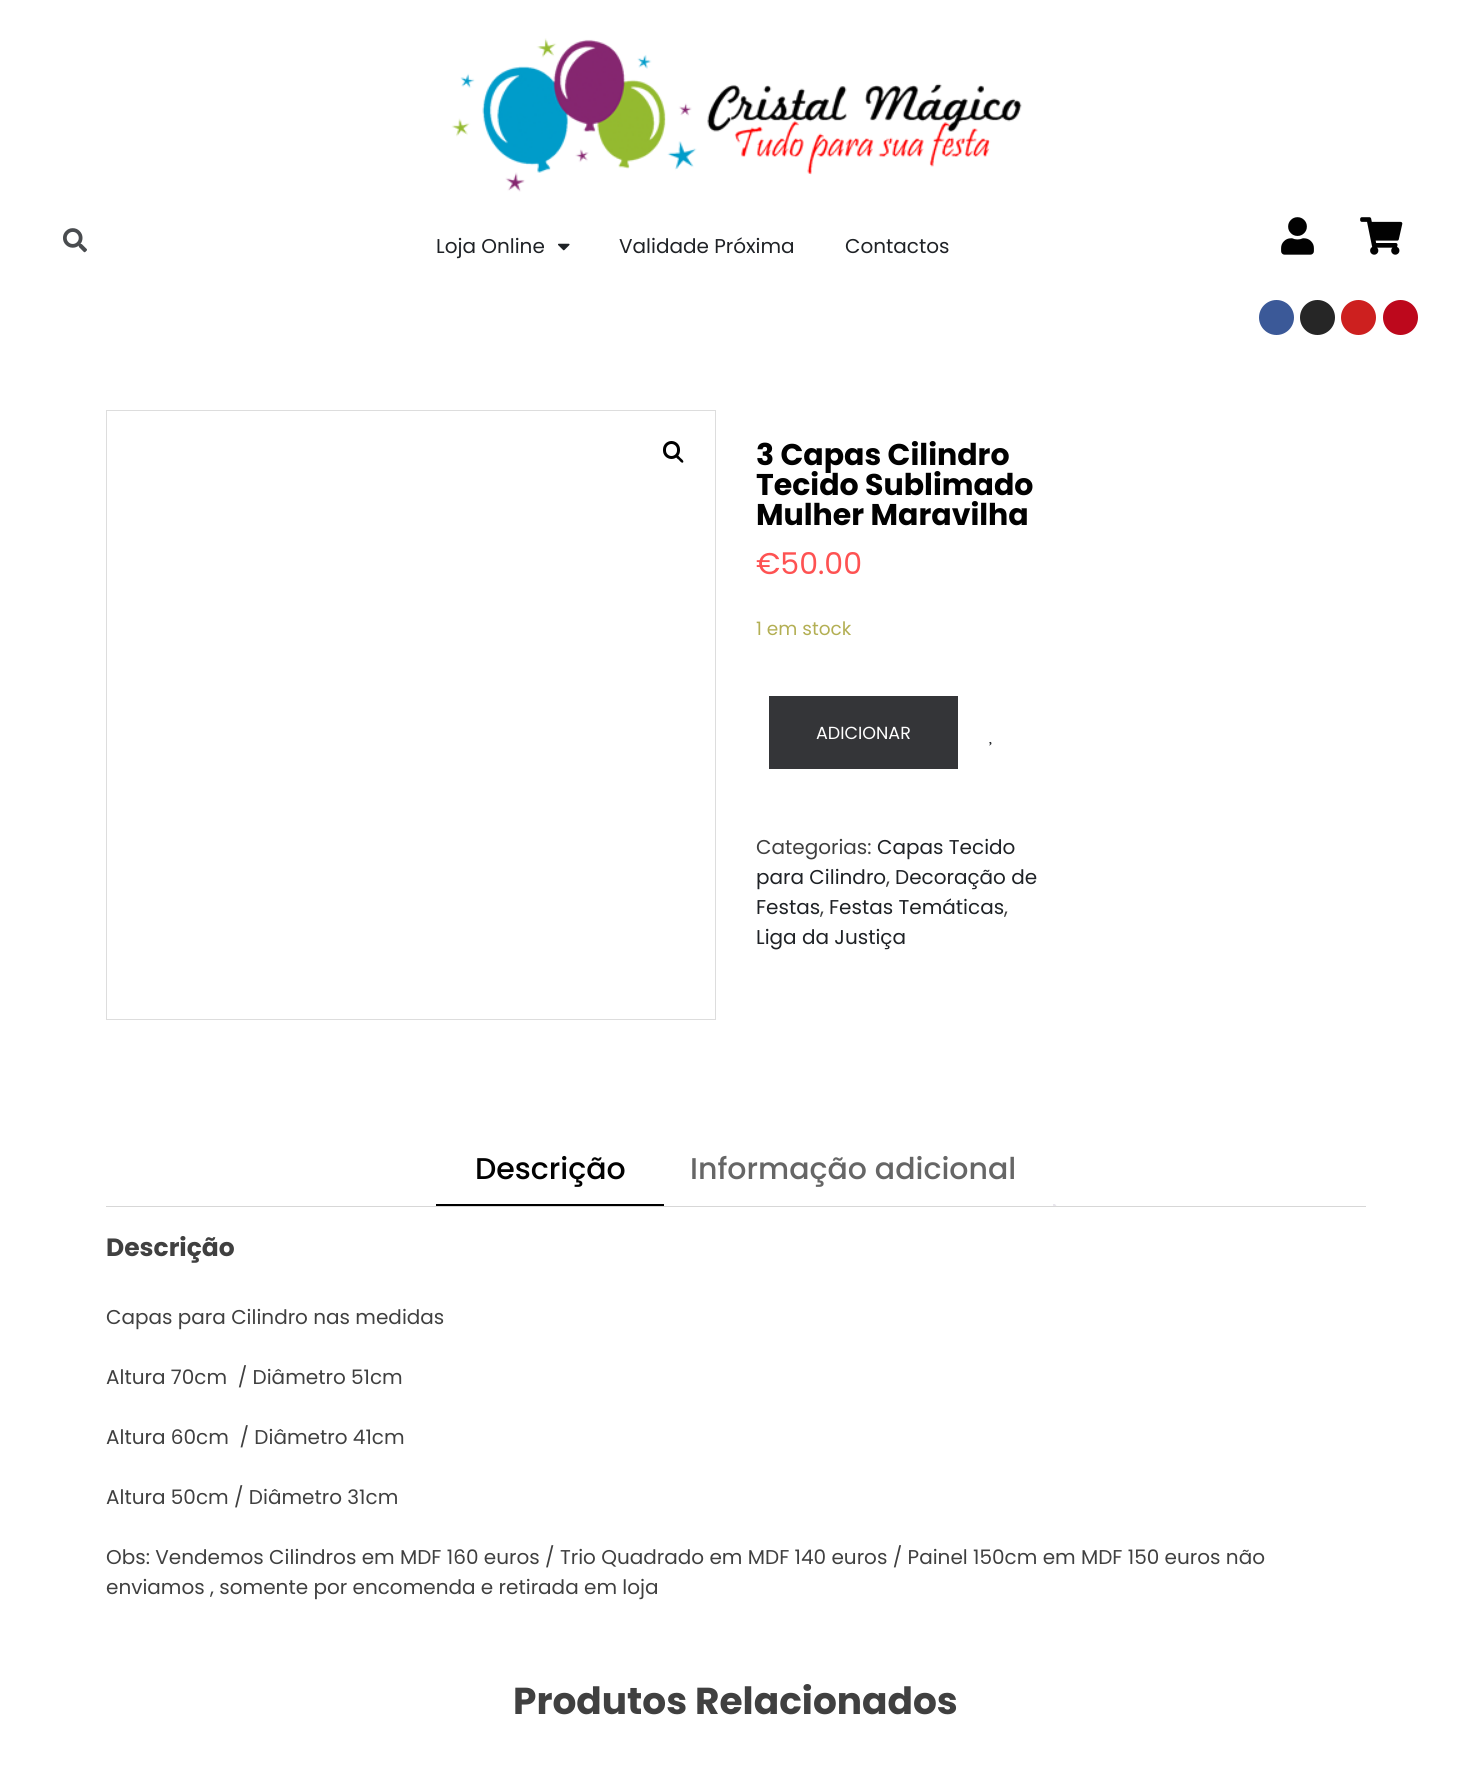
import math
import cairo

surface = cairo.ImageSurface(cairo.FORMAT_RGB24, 1471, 1775)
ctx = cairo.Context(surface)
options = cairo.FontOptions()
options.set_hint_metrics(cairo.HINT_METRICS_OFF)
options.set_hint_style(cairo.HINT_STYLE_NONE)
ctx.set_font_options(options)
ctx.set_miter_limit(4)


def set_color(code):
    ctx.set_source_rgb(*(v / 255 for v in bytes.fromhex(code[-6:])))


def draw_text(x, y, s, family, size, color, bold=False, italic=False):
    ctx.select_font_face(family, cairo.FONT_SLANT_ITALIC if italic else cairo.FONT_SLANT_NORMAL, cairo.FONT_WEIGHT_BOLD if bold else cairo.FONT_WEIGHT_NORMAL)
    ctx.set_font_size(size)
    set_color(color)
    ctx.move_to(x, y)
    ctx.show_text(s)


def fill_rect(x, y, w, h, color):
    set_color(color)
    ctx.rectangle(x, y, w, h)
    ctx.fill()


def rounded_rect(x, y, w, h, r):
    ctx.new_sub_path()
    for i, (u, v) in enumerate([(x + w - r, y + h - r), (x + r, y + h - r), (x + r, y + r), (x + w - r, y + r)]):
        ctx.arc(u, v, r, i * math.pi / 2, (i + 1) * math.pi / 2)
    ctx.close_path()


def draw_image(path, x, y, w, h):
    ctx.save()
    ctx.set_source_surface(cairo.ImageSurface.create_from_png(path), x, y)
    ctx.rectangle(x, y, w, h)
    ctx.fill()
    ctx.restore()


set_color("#ffffff")
ctx.paint()
draw_image("assets/img1.png", 451, 38, 571, 154)
draw_image("assets/img2.png", 63, 228, 24, 25)
draw_text(436, 253, "Loja Online", "Poppins", 20, "#1f2226")
draw_image("assets/img3.png", 558, 243, 12, 8)
draw_text(619, 253, "Validade Próxima", "Poppins", 20, "#1f2226")
draw_text(845, 253, "Contactos", "Poppins", 20, "#1f2226")
draw_image("assets/img4.png", 1281, 217, 33, 38)
draw_image("assets/img5.png", 1360, 217, 43, 38)
set_color("#3b5998")
ctx.arc(1276.5, 317.5, 17.5, 0, 2 * math.pi)
ctx.fill()
set_color("#262626")
ctx.arc(1317.5, 317.5, 17.5, 0, 2 * math.pi)
ctx.fill()
set_color("#cd201f")
ctx.arc(1358.5, 317.5, 17.5, 0, 2 * math.pi)
ctx.fill()
set_color("#bd081c")
ctx.arc(1400.5, 317.5, 17.5, 0, 2 * math.pi)
ctx.fill()
ctx.rectangle(106.5, 410.5, 609, 609)
set_color("#dddddd")
ctx.set_line_width(1)
ctx.stroke()
rounded_rect(664.5, 442.5, 14, 15, 7)
set_color("#000000")
ctx.set_line_width(3)
ctx.stroke()
ctx.new_path()
ctx.move_to(676, 455)
ctx.curve_to(677.5, 454, 679.5, 457, 680.5, 458)
ctx.curve_to(681, 458.5, 684.5, 461, 683, 462.5)
ctx.curve_to(681.5, 463.5, 679.5, 460.5, 678.5, 459.5)
ctx.curve_to(677.5, 459, 674.5, 456.5, 676, 455)
ctx.close_path()
ctx.fill()
draw_text(756, 465, "3 Capas Cilindro", "Poppins", 30, "#010101", bold=True)
draw_text(756, 495, "Tecido Sublimado", "Poppins", 30, "#010101", bold=True)
draw_text(756, 525, "Mulher Maravilha", "Poppins", 30, "#010101", bold=True)
draw_text(756, 574, "€50.00", "Poppins", 30, "#fe5252")
draw_text(756, 635, "1 em stock", "Poppins", 18.5, "#b3af54")
fill_rect(769, 696, 189, 73, "#343538")
draw_text(816, 739, "ADICIONAR", "Poppins", 17.5, "#ffffff")
draw_image("assets/img6.png", 989, 741, 3, 5)
draw_text(756, 854, "Categorias:", "Poppins", 20, "#404040")
draw_text(877, 854, "Capas Tecido", "Poppins", 20, "#1f2226")
draw_text(756, 884, "para Cilindro", "Poppins", 20, "#1f2226")
draw_text(886, 884, ",", "Poppins", 20, "#404040")
draw_text(895, 884, "Decoração de", "Poppins", 20, "#1f2226")
draw_text(756, 914, "Festas", "Poppins", 20, "#1f2226")
draw_text(820, 914, ",", "Poppins", 20, "#404040")
draw_text(829, 914, "Festas Temáticas", "Poppins", 20, "#1f2226")
draw_text(1004, 914, ",", "Poppins", 20, "#404040")
draw_text(756, 944, "Liga da Justiça", "Poppins", 20, "#1f2226")
fill_rect(106, 1206, 1260, 1, "#d7d7d7")
fill_rect(436, 1204, 228, 2, "#000000")
draw_text(475, 1179, "Descrição", "Poppins Medium", 30, "#010101")
draw_text(690, 1179, "Informação adicional", "Poppins Medium", 30, "#666666")
ctx.save()
ctx.rectangle(106, 1060, 1260, 146)
ctx.clip()
set_color("#e9e6ed")
ctx.new_path()
ctx.move_to(1053, 1204)
ctx.curve_to(1053, 1208, 1055, 1210, 1059, 1210)
ctx.line_to(1059, 1207.5)
ctx.curve_to(1057, 1207, 1056, 1205.5, 1055, 1204)
ctx.close_path()
ctx.fill()
ctx.restore()
draw_text(106, 1256, "Descrição", "Poppins", 25, "#404040", bold=True)
draw_text(106, 1324, "Capas para Cilindro nas medidas", "Poppins", 20, "#404040")
draw_text(106, 1384, "Altura 70cm  / Diâmetro 51cm", "Poppins", 20, "#404040")
draw_text(106, 1444, "Altura 60cm  / Diâmetro 41cm", "Poppins", 20, "#404040")
draw_text(106, 1504, "Altura 50cm / Diâmetro 31cm", "Poppins", 20, "#404040")
draw_text(106, 1564, "Obs: Vendemos Cilindros em MDF 160 euros / Trio Quadrado em MDF 140 euros / Painel 150cm em MDF 150 euros não", "Poppins", 20, "#404040")
draw_text(106, 1594, "enviamos , somente por encomenda e retirada em loja", "Poppins", 20, "#404040")
draw_text(513, 1714, "Produtos Relacionados", "Poppins", 37.5, "#404040", bold=True)
surface.write_to_png("output.png")
